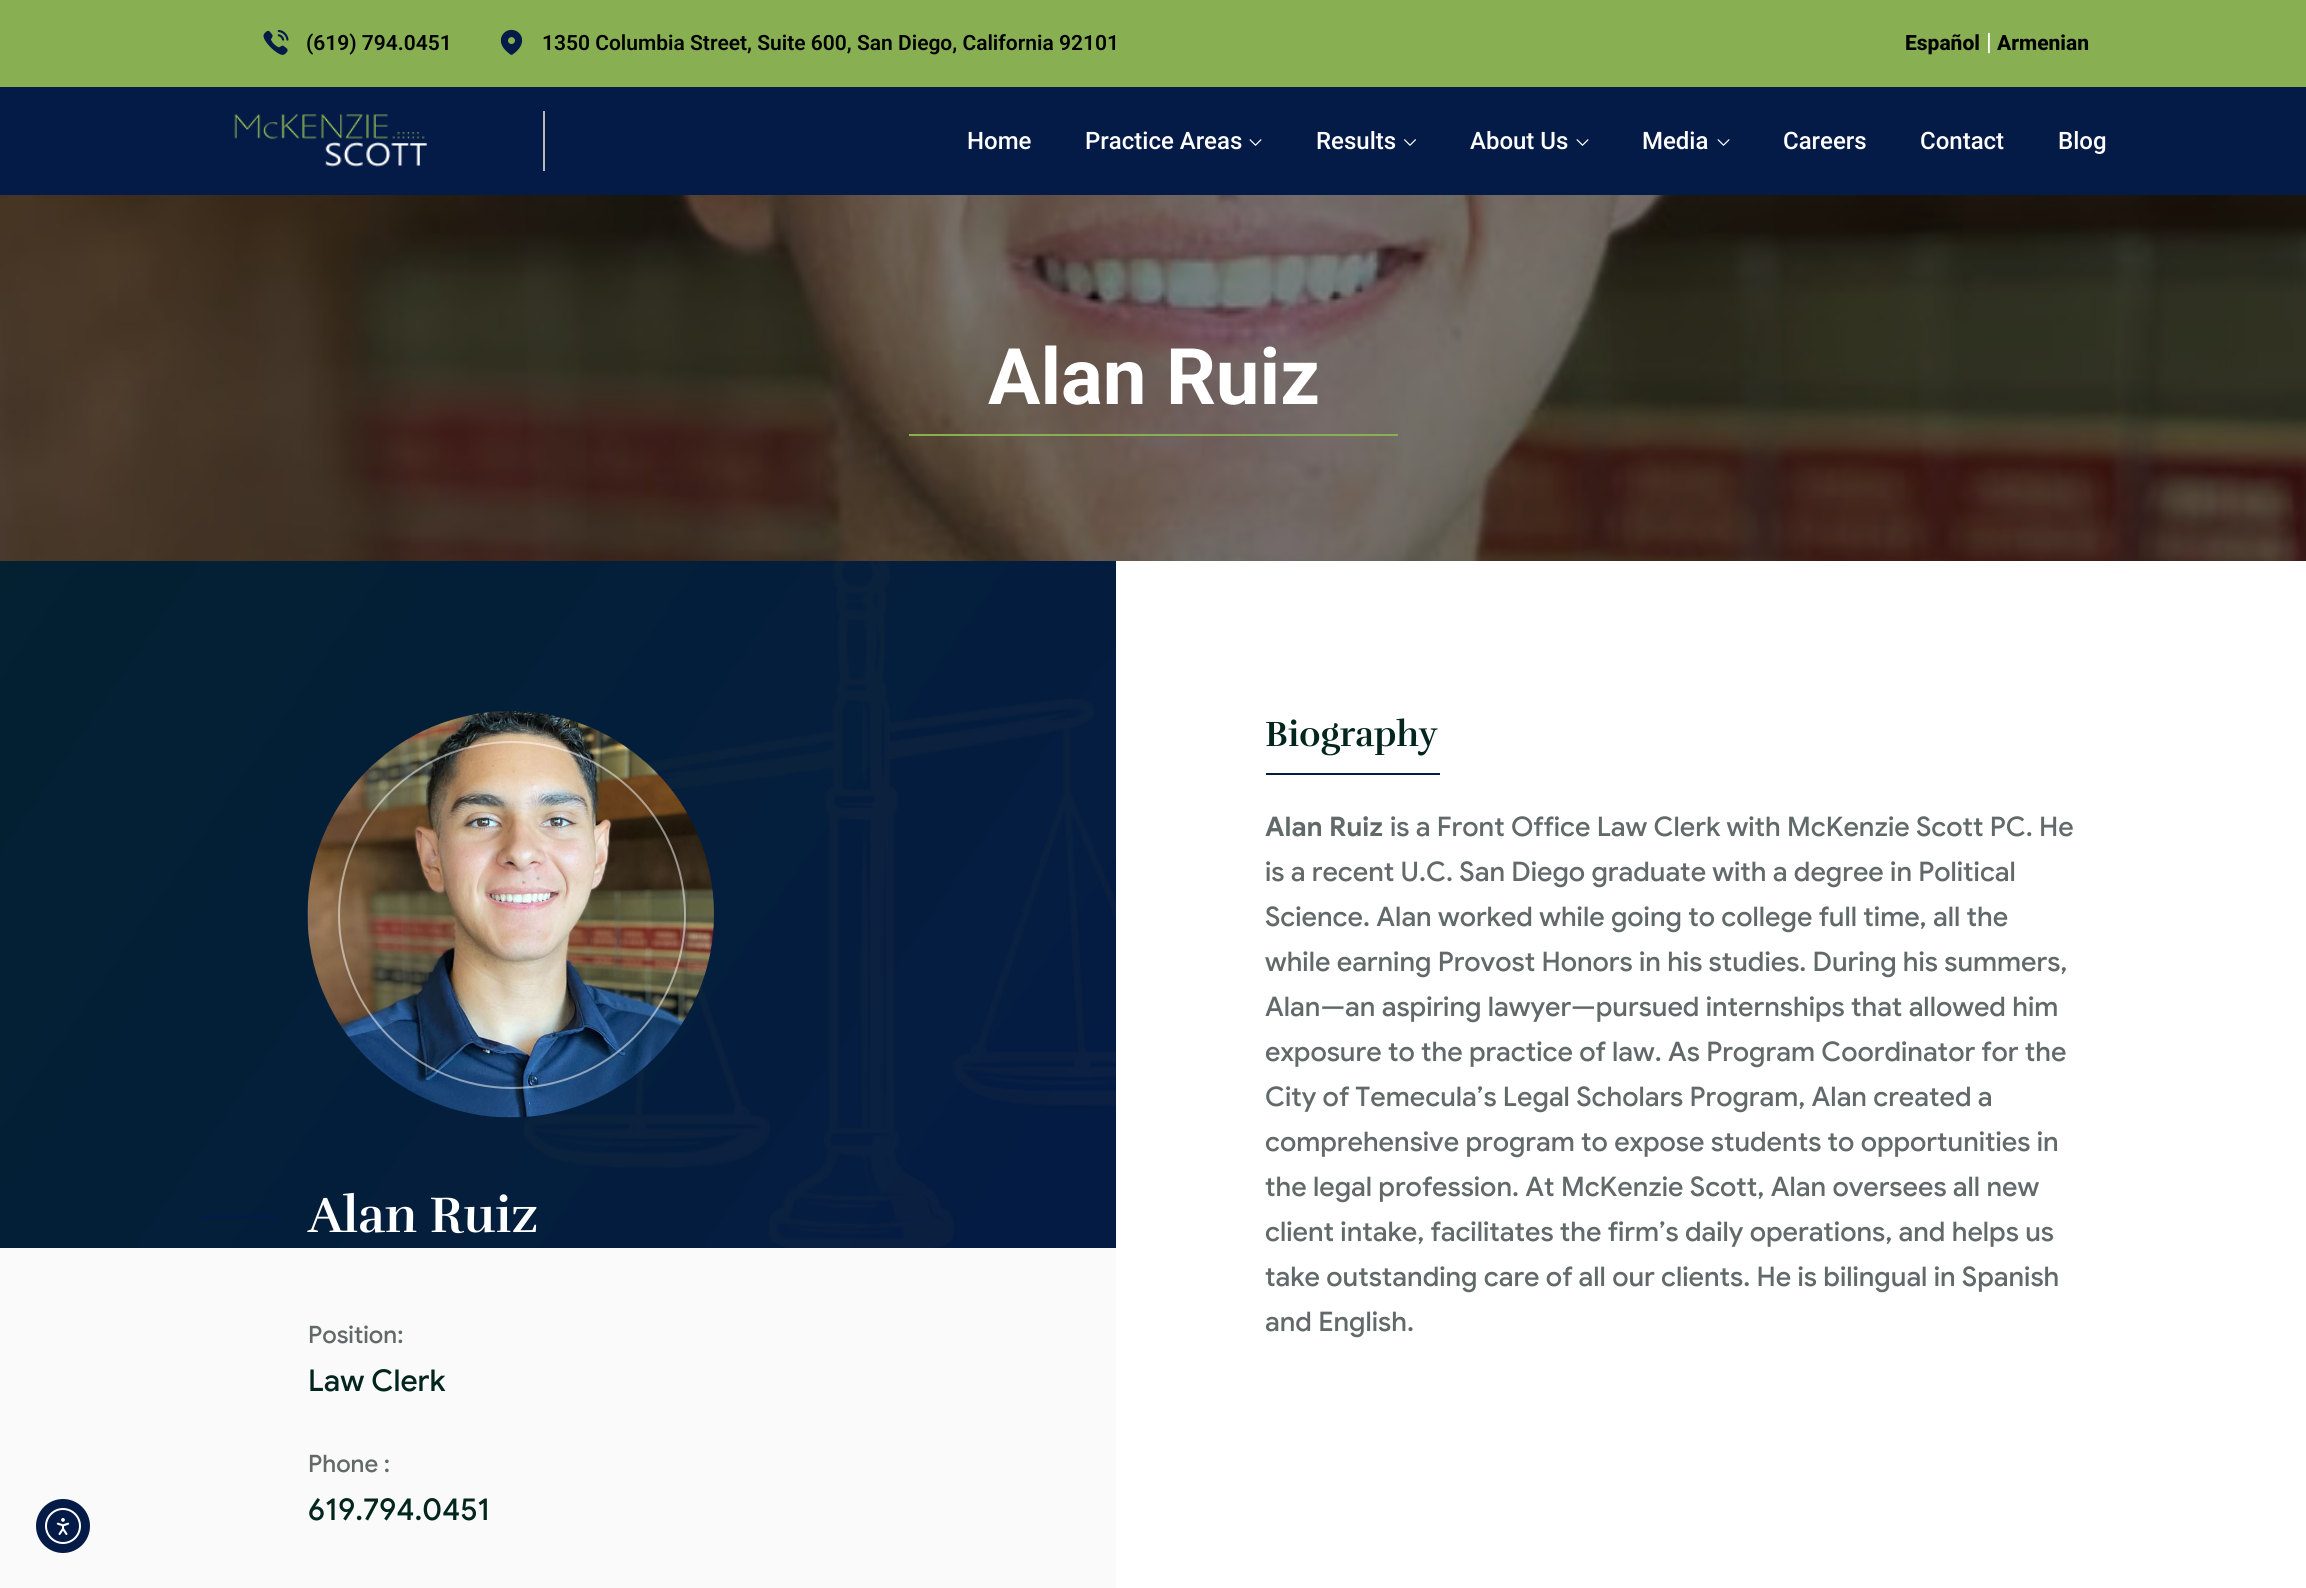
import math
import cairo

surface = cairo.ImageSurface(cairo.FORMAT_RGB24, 2306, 1588)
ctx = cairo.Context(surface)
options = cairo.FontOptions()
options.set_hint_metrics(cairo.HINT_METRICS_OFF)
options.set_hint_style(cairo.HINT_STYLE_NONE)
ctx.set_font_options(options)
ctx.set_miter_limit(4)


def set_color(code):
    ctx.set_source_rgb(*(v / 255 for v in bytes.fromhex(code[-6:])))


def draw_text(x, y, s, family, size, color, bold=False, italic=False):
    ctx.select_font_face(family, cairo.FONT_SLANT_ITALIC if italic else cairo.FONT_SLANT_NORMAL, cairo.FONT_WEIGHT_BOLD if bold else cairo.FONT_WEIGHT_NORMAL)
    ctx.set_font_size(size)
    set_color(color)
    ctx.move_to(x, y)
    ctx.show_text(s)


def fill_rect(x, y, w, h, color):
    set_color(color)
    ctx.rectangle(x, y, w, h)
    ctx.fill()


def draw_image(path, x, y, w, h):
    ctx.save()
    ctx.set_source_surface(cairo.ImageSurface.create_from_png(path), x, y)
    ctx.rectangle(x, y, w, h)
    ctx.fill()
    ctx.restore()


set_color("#ffffff")
ctx.paint()
fill_rect(0, 1248, 1116, 340, "#fafafa")
set_color("#051b47")
ctx.arc(63, 1526, 27, 0, 2 * math.pi)
ctx.fill()
ctx.arc(63, 1526, 17, 0, 2 * math.pi)
set_color("#ffffff")
ctx.stroke()
draw_image("assets/img1.png", 56, 1518, 14, 17)
fill_rect(0, 0, 2306, 87, "#88af52")
draw_image("assets/img2.png", 263, 29, 26, 26)
draw_text(306, 50, "(619) 794.0451", "Roboto SemiBold", 21, "#030303")
draw_image("assets/img3.png", 500, 29, 23, 26)
draw_text(542, 50, "1350 Columbia Street, Suite 600, San Diego, California 92101", "Roboto SemiBold", 21, "#030303")
draw_text(1905, 50, "Español", "Roboto ExtraBold", 21, "#030303")
draw_text(1986, 50, "|", "Roboto", 24, "#ffffff")
draw_text(1997, 50, "Armenian", "Roboto ExtraBold", 21, "#030303")
fill_rect(0, 87, 2306, 108, "#041b47")
fill_rect(543, 111, 2, 60, "#b8b8b8")
draw_image("assets/img4.png", 234, 114, 193, 53)
draw_text(967, 149, "Home", "Roboto Medium", 24, "#ffffff")
draw_text(1085, 149, "Practice Areas", "Roboto Medium", 24, "#ffffff")
draw_image("assets/img5.png", 1249, 139, 13, 7)
draw_text(1316, 149, "Results", "Roboto Medium", 24, "#ffffff")
draw_image("assets/img6.png", 1404, 139, 12, 7)
draw_text(1470, 149, "About Us", "Roboto Medium", 24, "#ffffff")
draw_image("assets/img5.png", 1576, 139, 13, 7)
draw_text(1642, 149, "Media", "Roboto Medium", 24, "#ffffff")
draw_image("assets/img5.png", 1717, 139, 13, 7)
draw_text(1783, 149, "Careers", "Roboto Medium", 24, "#ffffff")
draw_text(1920, 149, "Contact", "Roboto Medium", 24, "#ffffff")
draw_text(2058, 149, "Blog", "Roboto Medium", 24, "#ffffff")
draw_image("assets/img7.png", 0, 195, 2306, 366)
draw_text(988, 404, "Alan Ruiz", "Roboto", 78, "#ffffff", bold=True)
fill_rect(909, 434, 489, 2, "#88af52")
gradient = cairo.LinearGradient(-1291, 84, 1014, 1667)
gradient.add_color_stop_rgba(0, 0.008, 0.149, 0.114, 1)
gradient.add_color_stop_rgba(1, 0.016, 0.106, 0.278, 1)
ctx.set_source(gradient)
ctx.rectangle(0, 561, 1116, 687)
ctx.fill()
draw_image("assets/img8.png", 524, 561, 592, 687)
draw_image("assets/img9.png", 307, 711, 407, 407)
ctx.arc(512, 915, 173, 0, 2 * math.pi)
ctx.set_source_rgba(1, 1, 1, 0.5)
ctx.stroke()
fill_rect(201, 1215, 77, 3, "#041b47")
draw_text(308, 1232, "Alan Ruiz", "Rufina", 51, "#ffffff", bold=True)
draw_text(308, 1343, "Position:", "Google Sans Medium", 24, "#616a68")
draw_text(308, 1391, "Law Clerk", "Google Sans Medium", 30, "#02261d")
draw_text(308, 1472, "Phone :", "Google Sans Medium", 24, "#616a68")
draw_text(308, 1520, "619.794.0451", "Google Sans Medium", 30, "#02261d")
draw_text(1265, 746, "Biography", "Rufina", 36, "#02261d", bold=True)
fill_rect(1266, 773, 174, 2, "#041b47")
draw_text(1265, 836, "Alan Ruiz", "Google Sans", 27, "#616a68", bold=True)
draw_text(1390, 836, "is a Front Office Law Clerk with McKenzie Scott PC. He", "Google Sans Medium", 27, "#616a68")
draw_text(1265, 881, "is a recent U.C. San Diego graduate with a degree in Political", "Google Sans Medium", 27, "#616a68")
draw_text(1265, 926, "Science. Alan worked while going to college full time, all the", "Google Sans Medium", 27, "#616a68")
draw_text(1265, 971, "while earning Provost Honors in his studies. During his summers,", "Google Sans Medium", 27, "#616a68")
draw_text(1265, 1016, "Alan—an aspiring lawyer—pursued internships that allowed him", "Google Sans Medium", 27, "#616a68")
draw_text(1265, 1061, "exposure to the practice of law. As Program Coordinator for the", "Google Sans Medium", 27, "#616a68")
draw_text(1265, 1106, "City of Temecula’s Legal Scholars Program, Alan created a", "Google Sans Medium", 27, "#616a68")
draw_text(1265, 1151, "comprehensive program to expose students to opportunities in", "Google Sans Medium", 27, "#616a68")
draw_text(1265, 1196, "the legal profession. At McKenzie Scott, Alan oversees all new", "Google Sans Medium", 27, "#616a68")
draw_text(1265, 1241, "client intake, facilitates the firm’s daily operations, and helps us", "Google Sans Medium", 27, "#616a68")
draw_text(1265, 1286, "take outstanding care of all our clients. He is bilingual in Spanish", "Google Sans Medium", 27, "#616a68")
draw_text(1265, 1331, "and English.", "Google Sans Medium", 27, "#616a68")
surface.write_to_png("output.png")
